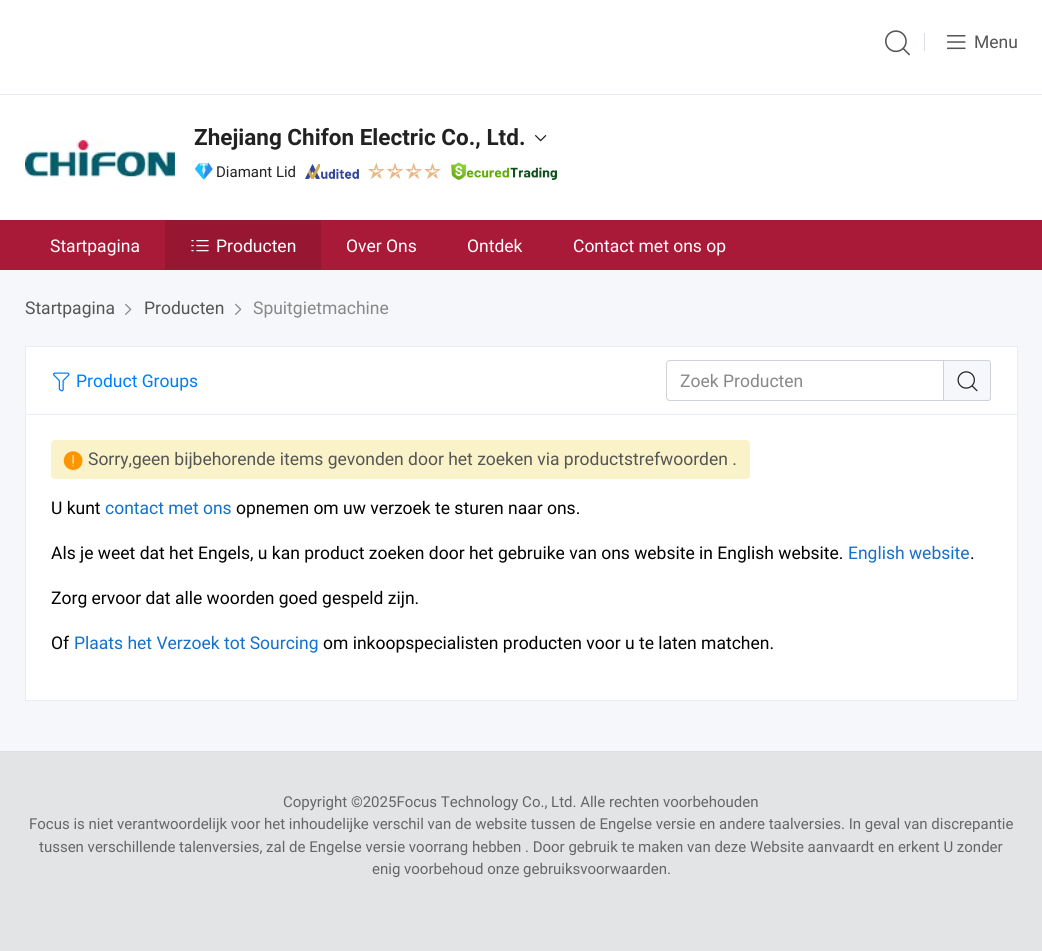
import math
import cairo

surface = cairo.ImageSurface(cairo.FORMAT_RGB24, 1042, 951)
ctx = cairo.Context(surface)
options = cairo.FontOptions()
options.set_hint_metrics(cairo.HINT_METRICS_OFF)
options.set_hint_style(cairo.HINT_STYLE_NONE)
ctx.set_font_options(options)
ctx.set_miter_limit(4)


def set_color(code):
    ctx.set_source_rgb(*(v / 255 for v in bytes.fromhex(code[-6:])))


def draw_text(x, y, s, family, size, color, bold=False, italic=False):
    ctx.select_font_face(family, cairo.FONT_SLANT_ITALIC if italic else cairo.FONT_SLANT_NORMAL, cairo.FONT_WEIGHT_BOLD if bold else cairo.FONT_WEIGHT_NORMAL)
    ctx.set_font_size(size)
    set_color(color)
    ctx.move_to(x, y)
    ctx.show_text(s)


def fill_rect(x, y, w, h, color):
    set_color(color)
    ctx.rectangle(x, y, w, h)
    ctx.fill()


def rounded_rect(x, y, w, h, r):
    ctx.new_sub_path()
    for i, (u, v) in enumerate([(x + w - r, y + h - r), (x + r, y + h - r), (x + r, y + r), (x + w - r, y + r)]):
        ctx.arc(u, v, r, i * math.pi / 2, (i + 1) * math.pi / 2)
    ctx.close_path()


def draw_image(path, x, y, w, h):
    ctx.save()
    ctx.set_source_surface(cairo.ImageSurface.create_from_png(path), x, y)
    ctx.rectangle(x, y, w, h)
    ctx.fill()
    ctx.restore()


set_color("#ffffff")
ctx.paint()
draw_image("assets/img1.png", 885, 30, 25, 26)
fill_rect(924, 33, 1, 18, "#dae0e6")
draw_image("assets/img2.png", 946, 35, 20, 15)
draw_text(974, 48, "Menu", "Roboto", 17.5, "#555555")
fill_rect(0, 94, 1042, 1, "#e6ecf2")
draw_image("assets/img3.png", 25, 140, 150, 37)
draw_text(194, 145, "Zhejiang Chifon Electric Co., Ltd.", "Roboto", 22.5, "#222222", bold=True)
draw_image("assets/img4.png", 535, 135, 12, 7)
draw_image("assets/img5.png", 195, 163, 18, 17)
draw_text(216, 177, "Diamant Lid", "Roboto", 15, "#222222")
draw_image("assets/img6.png", 305, 163, 54, 16)
draw_image("assets/img7.png", 367, 162, 18, 18)
draw_image("assets/img8.png", 386, 162, 18, 18)
draw_image("assets/img9.png", 405, 162, 18, 18)
draw_image("assets/img10.png", 424, 162, 17, 17)
draw_image("assets/img11.png", 451, 162, 106, 18)
fill_rect(0, 220, 1042, 50, "#a81a38")
draw_text(50, 252, "Startpagina", "Roboto", 17.5, "#ffffff")
fill_rect(165, 220, 156, 50, "#971732")
draw_image("assets/img12.png", 191, 240, 18, 12)
draw_text(216, 252, "Producten", "Roboto", 17.5, "#ffffff")
draw_text(346, 252, "Over Ons", "Roboto", 17.5, "#ffffff")
draw_text(467, 252, "Ontdek", "Roboto", 17.5, "#ffffff")
draw_text(573, 252, "Contact met ons op", "Roboto", 17.5, "#ffffff")
fill_rect(0, 270, 1042, 481, "#f5f7fa")
draw_text(25, 314, "Startpagina", "Roboto", 17.5, "#555555")
draw_image("assets/img13.png", 125, 303, 7, 12)
draw_text(144, 314, "Producten", "Roboto", 17.5, "#555555")
draw_image("assets/img13.png", 235, 303, 7, 12)
draw_text(253, 314, "Spuitgietmachine", "Roboto", 17.5, "#888888")
set_color("#ffffff")
ctx.rectangle(25.5, 346.5, 992, 68)
ctx.fill_preserve()
set_color("#e9eef4")
ctx.set_line_width(1)
ctx.stroke()
draw_image("assets/img14.png", 53, 372, 17, 20)
draw_text(76, 387, "Product Groups", "Roboto", 17.5, "#007dfa")
ctx.new_path()
ctx.move_to(670, 360.5)
ctx.line_to(943.5, 360.5)
ctx.line_to(943.5, 400.5)
ctx.line_to(670, 400.5)
ctx.curve_to(668, 400.5, 666.5, 399, 666.5, 397)
ctx.line_to(666.5, 364)
ctx.curve_to(666.5, 362, 668, 360.5, 670, 360.5)
ctx.close_path()
set_color("#ced3d9")
ctx.stroke()
draw_text(680, 387, "Zoek Producten", "Roboto", 17.5, "#888888")
set_color("#f5f7fa")
ctx.new_path()
ctx.move_to(944, 360)
ctx.line_to(987, 360)
ctx.curve_to(989, 360, 991, 362, 991, 364)
ctx.line_to(991, 397)
ctx.curve_to(991, 399, 989, 401, 987, 401)
ctx.line_to(944, 401)
ctx.close_path()
ctx.fill()
set_color("#ced3d9")
ctx.set_fill_rule(cairo.FILL_RULE_EVEN_ODD)
ctx.new_path()
ctx.move_to(944, 360)
ctx.line_to(988, 360)
ctx.curve_to(990, 360, 991, 362, 991, 364)
ctx.line_to(991, 398)
ctx.curve_to(991, 400, 990, 401, 988, 401)
ctx.line_to(944, 401)
ctx.close_path()
ctx.move_to(944, 361)
ctx.line_to(988, 361)
ctx.curve_to(989, 361, 990, 362, 990, 364)
ctx.line_to(990, 398)
ctx.curve_to(990, 399, 989, 400, 988, 400)
ctx.line_to(944, 400)
ctx.close_path()
ctx.fill()
draw_image("assets/img15.png", 957, 371, 21, 21)
set_color("#ffffff")
ctx.rectangle(25.5, 414.5, 992, 286)
ctx.fill_preserve()
set_color("#e9eef4")
ctx.stroke()
set_color("#faf2c8")
rounded_rect(51, 440, 699, 39, 4)
ctx.fill()
draw_image("assets/img16.png", 63, 451, 20, 19)
draw_text(88, 465, "Sorry,geen bijbehorende items gevonden door het zoeken via productstrefwoorden .", "Roboto", 17.5, "#555555")
draw_text(51, 514, "U kunt", "Roboto", 17.5, "#000000")
draw_text(105, 514, "contact met ons", "Roboto", 17.5, "#1470cc")
draw_text(236, 514, "opnemen om uw verzoek te sturen naar ons.", "Roboto", 17.5, "#000000")
draw_text(51, 559, "Als je weet dat het Engels, u kan product zoeken door het gebruike van ons website in English website.", "Roboto", 17.5, "#000000")
draw_text(848, 559, "English website", "Roboto", 17.5, "#1470cc")
draw_text(970, 559, ".", "Roboto", 17.5, "#000000")
draw_text(51, 604, "Zorg ervoor dat alle woorden goed gespeld zijn.", "Roboto", 17.5, "#000000")
draw_text(51, 649, "Of", "Roboto", 17.5, "#000000")
draw_text(74, 649, "Plaats het Verzoek tot Sourcing", "Roboto", 17.5, "#1470cc")
draw_text(323, 649, "om inkoopspecialisten producten voor u te laten matchen.", "Roboto", 17.5, "#000000")
fill_rect(0, 752, 1042, 199, "#e3e4e6")
fill_rect(0, 751, 1042, 1, "#dae0e6")
draw_text(283, 807, "Copyright ©2025Focus Technology Co., Ltd. Alle rechten voorbehouden", "Roboto", 15, "#666666")
draw_text(29, 829, "Focus is niet verantwoordelijk voor het inhoudelijke verschil van de website tussen de Engelse versie en andere taalversies. In geval van discrepantie", "Roboto", 15, "#666666")
draw_text(39, 852, "tussen verschillende talenversies, zal de Engelse versie voorrang hebben . Door gebruik te maken van deze Website aanvaardt en erkent U zonder", "Roboto", 15, "#666666")
draw_text(372, 874, "enig voorbehoud onze gebruiksvoorwaarden.", "Roboto", 15, "#666666")
surface.write_to_png("output.png")
